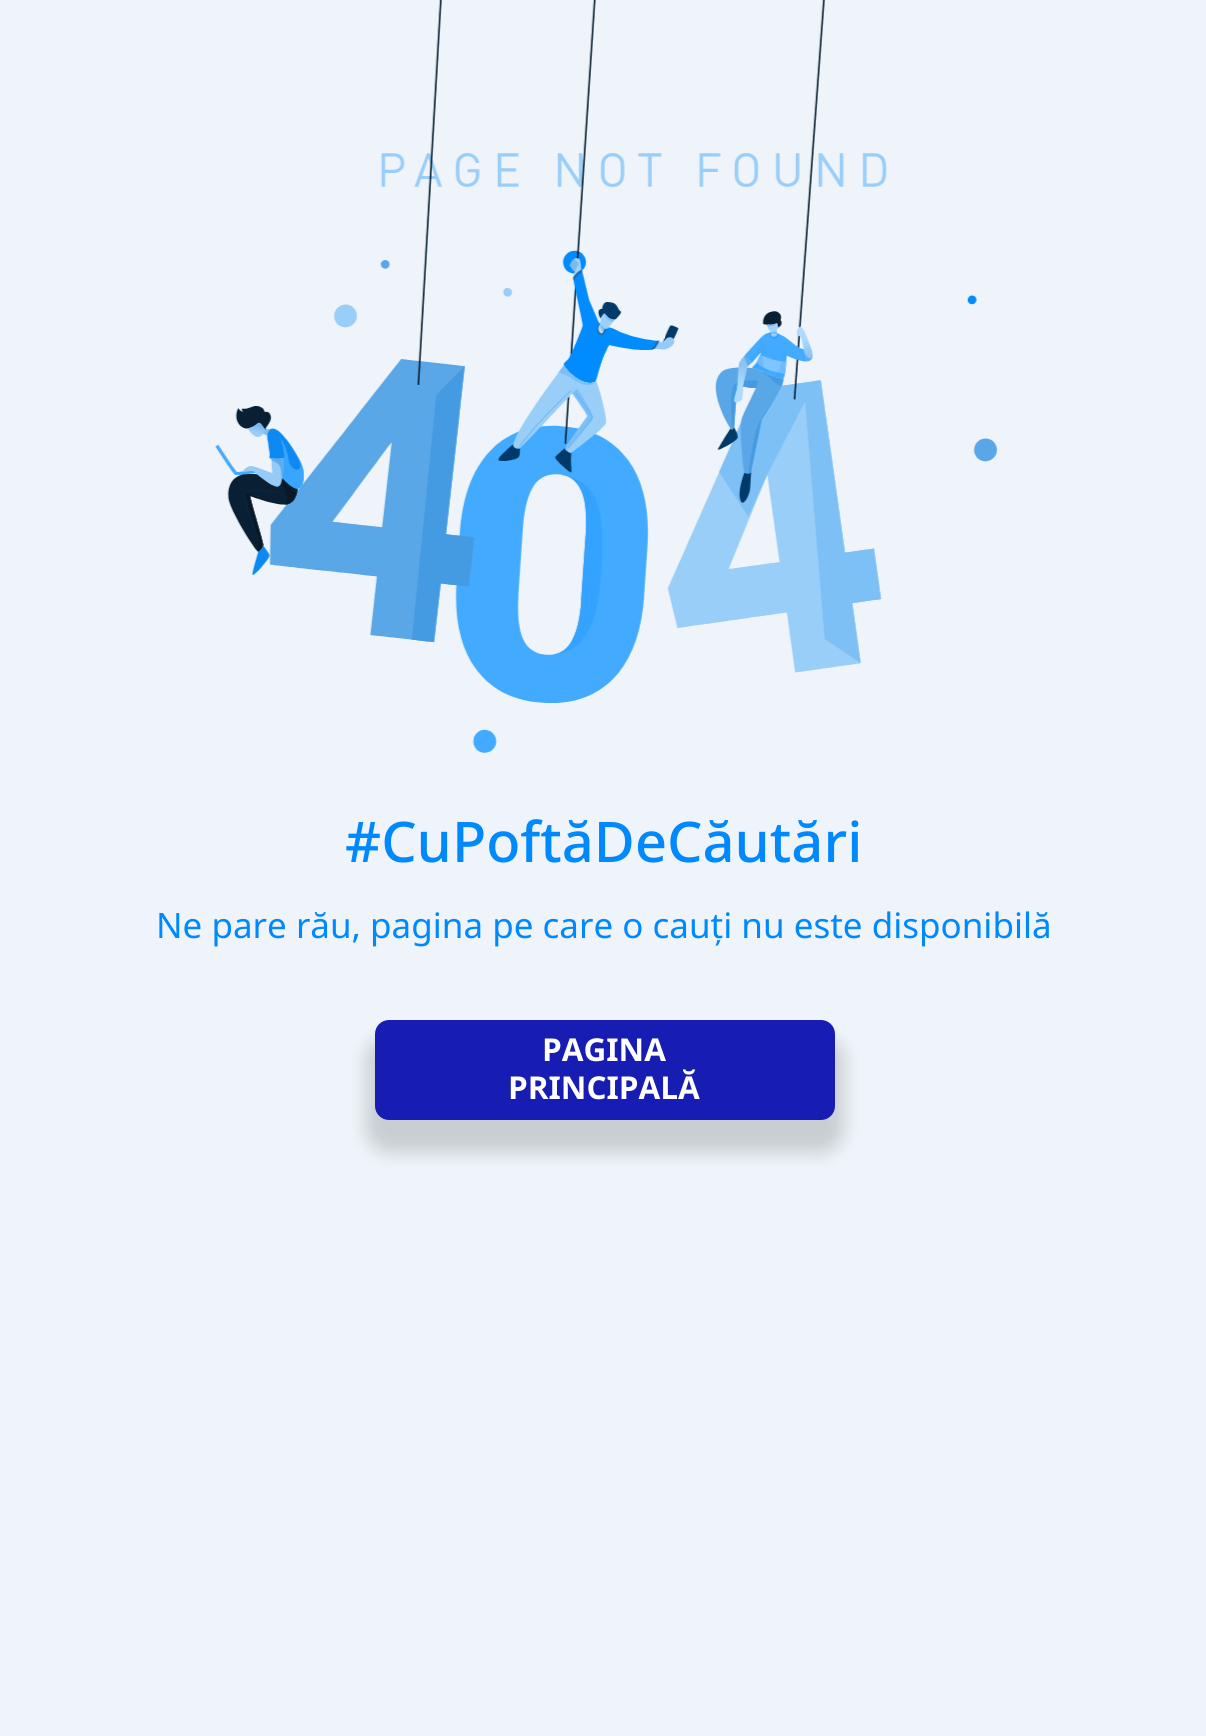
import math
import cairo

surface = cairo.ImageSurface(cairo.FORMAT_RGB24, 1206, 1736)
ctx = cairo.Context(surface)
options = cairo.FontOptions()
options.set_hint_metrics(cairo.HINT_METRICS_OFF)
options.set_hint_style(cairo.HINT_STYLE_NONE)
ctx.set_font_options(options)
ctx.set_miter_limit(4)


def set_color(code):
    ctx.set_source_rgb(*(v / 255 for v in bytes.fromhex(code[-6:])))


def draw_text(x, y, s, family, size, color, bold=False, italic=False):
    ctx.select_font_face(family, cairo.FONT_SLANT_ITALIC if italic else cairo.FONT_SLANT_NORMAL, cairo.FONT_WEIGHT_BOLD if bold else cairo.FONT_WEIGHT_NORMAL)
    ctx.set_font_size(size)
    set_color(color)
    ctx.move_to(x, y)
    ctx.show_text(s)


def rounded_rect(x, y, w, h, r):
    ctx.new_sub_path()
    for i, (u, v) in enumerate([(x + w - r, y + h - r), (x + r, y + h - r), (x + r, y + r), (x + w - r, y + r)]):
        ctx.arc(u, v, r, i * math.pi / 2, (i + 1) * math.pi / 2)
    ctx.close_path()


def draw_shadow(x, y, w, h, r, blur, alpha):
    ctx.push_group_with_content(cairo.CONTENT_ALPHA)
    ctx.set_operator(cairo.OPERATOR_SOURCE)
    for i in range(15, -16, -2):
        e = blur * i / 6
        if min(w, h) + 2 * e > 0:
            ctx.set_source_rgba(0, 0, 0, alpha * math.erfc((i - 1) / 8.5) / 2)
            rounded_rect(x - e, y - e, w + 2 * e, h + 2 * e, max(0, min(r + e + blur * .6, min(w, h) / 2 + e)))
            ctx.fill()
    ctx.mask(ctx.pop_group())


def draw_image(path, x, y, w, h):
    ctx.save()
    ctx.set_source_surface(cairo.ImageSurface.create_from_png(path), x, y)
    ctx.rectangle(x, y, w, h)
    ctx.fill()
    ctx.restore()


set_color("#eef4f9")
ctx.paint()
draw_image("assets/img1.png", 215, 0, 783, 753)
draw_text(345, 862, "#CuPoftăDeCăutări", "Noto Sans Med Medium", 56, "#0088ff")
draw_text(156, 938, "Ne pare rău, pagina pe care o cauți nu este disponibilă", "Noto Sans", 35, "#0088ff")
set_color("#000000")
draw_shadow(366, 1036, 478, 117, 23, 9, 0.16)
set_color("#171cb3")
rounded_rect(375, 1020, 460, 100, 14)
ctx.fill()
draw_text(542, 1061, "PAGINA", "Noto Sans", 31.5, "#ffffff", bold=True)
draw_text(508, 1099, "PRINCIPALĂ", "Noto Sans", 31.5, "#ffffff", bold=True)
surface.write_to_png("output.png")
